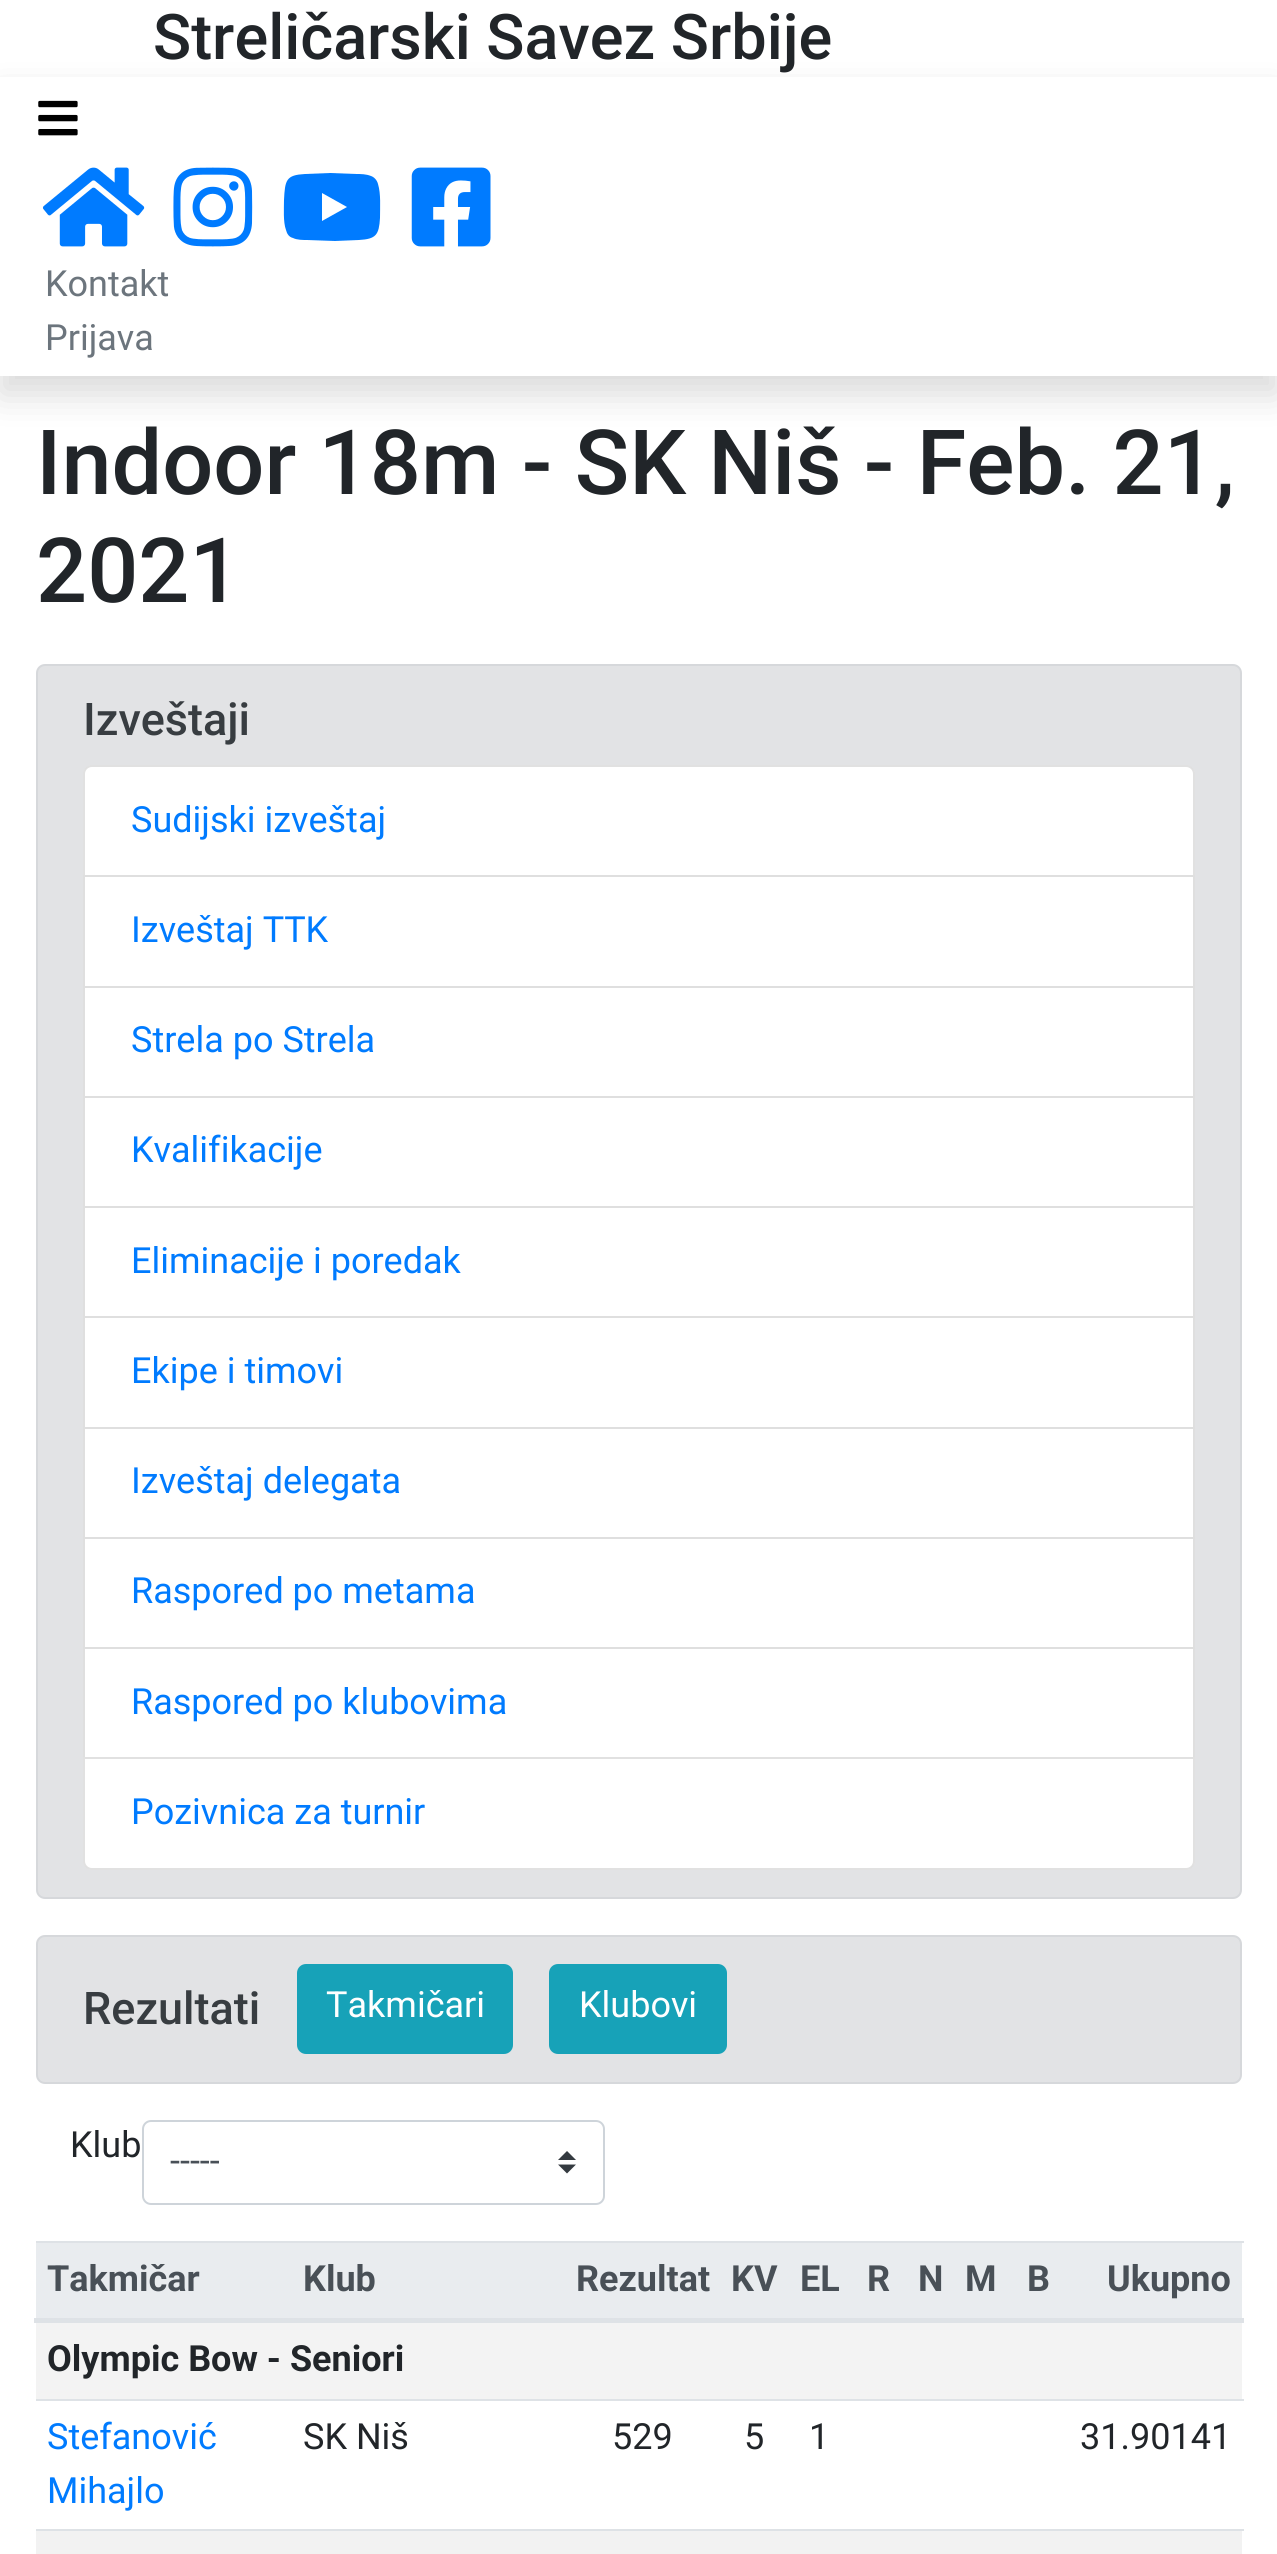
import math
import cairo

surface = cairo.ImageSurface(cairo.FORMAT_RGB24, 1277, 2554)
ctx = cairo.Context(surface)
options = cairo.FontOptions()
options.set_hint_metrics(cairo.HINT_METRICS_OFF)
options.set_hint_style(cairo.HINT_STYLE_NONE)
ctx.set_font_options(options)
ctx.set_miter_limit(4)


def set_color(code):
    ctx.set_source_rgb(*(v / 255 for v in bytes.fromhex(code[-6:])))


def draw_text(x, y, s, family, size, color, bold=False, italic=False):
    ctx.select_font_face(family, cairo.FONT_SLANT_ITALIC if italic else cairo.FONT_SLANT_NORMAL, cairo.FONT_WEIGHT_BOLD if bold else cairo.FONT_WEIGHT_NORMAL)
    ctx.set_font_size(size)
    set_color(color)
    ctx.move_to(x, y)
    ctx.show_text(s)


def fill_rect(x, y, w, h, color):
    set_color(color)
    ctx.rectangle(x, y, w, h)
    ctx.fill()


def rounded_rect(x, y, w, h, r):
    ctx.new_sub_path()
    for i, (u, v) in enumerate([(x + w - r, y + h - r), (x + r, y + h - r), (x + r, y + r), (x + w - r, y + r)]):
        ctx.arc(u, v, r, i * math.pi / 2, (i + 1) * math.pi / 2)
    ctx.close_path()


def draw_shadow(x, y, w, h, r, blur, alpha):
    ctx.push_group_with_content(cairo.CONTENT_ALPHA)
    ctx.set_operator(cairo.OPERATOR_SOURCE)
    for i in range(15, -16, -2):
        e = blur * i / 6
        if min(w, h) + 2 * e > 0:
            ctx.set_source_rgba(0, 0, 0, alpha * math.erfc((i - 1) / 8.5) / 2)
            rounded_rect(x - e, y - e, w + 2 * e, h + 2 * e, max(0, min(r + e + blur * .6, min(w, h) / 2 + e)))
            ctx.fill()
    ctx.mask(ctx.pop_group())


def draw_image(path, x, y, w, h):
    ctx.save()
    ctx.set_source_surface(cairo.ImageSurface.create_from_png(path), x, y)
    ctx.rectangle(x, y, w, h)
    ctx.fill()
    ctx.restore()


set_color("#ffffff")
ctx.paint()
draw_text(153, 59, "Streličarski Savez Srbije", "Roboto Medium", 63, "#212529")
ctx.save()
ctx.set_fill_rule(cairo.FILL_RULE_EVEN_ODD)
ctx.new_path()
ctx.move_to(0, 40)
ctx.line_to(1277, 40)
ctx.line_to(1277, 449)
ctx.line_to(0, 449)
ctx.close_path()
ctx.move_to(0, 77)
ctx.line_to(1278, 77)
ctx.line_to(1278, 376)
ctx.line_to(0, 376)
ctx.close_path()
ctx.clip()
set_color("#000000")
draw_shadow(0, 95, 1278, 299, 0, 18, 0.15)
ctx.restore()
draw_image("assets/img1.png", 38, 100, 40, 36)
draw_image("assets/img2.png", 42, 167, 103, 80)
draw_image("assets/img3.png", 173, 167, 80, 80)
set_color("#007bff")
ctx.new_path()
ctx.move_to(378, 184)
ctx.curve_to(381, 194, 380, 207, 380, 218)
ctx.curve_to(379, 235, 376, 239, 359, 240)
ctx.line_to(335, 241)
ctx.line_to(307, 240)
ctx.curve_to(303, 240, 297, 240, 293, 238)
ctx.curve_to(289, 237, 287, 234, 286, 230)
ctx.curve_to(283, 222, 284, 208, 284, 200)
ctx.curve_to(285, 180, 286, 175, 305, 174)
ctx.line_to(330, 173)
ctx.line_to(356, 174)
ctx.curve_to(361, 174, 366, 174, 371, 176)
ctx.curve_to(374, 177, 377, 180, 378, 184)
ctx.close_path()
ctx.move_to(322, 221)
ctx.line_to(347, 207)
ctx.line_to(322, 193)
ctx.close_path()
ctx.fill()
draw_image("assets/img4.png", 411, 167, 80, 80)
draw_text(45, 296, "Kontakt", "Roboto", 36, "#6c757d")
draw_text(45, 350, "Prijava", "Roboto", 36, "#6c757d")
draw_text(36, 494, "Indoor 18m - SK Niš - Feb. 21,", "Roboto Medium", 90, "#212529")
draw_text(36, 602, "2021", "Roboto Medium", 90, "#212529")
set_color("#e2e3e5")
rounded_rect(37, 665, 1204, 1233, 8)
ctx.fill_preserve()
set_color("#d6d8db")
ctx.stroke()
draw_text(83, 735, "Izveštaji", "Roboto Medium", 45, "#383d41")
set_color("#ffffff")
ctx.new_path()
ctx.move_to(92, 765)
ctx.line_to(1186, 765)
ctx.curve_to(1191, 765, 1195, 769, 1195, 774)
ctx.line_to(1195, 878)
ctx.line_to(83, 878)
ctx.line_to(83, 774)
ctx.curve_to(83, 769, 87, 765, 92, 765)
ctx.close_path()
ctx.fill()
ctx.new_path()
ctx.move_to(92, 766)
ctx.line_to(1186, 766)
ctx.curve_to(1190.5, 766, 1194, 769.5, 1194, 774)
ctx.line_to(1194, 877)
ctx.line_to(84, 877)
ctx.line_to(84, 774)
ctx.curve_to(84, 769.5, 87.5, 766, 92, 766)
ctx.close_path()
ctx.set_source_rgba(0, 0, 0, 0.12)
ctx.stroke()
draw_text(131, 832, "Sudijski izveštaj", "Roboto", 36, "#007bff")
set_color("#ffffff")
ctx.rectangle(84, 876, 1110, 111)
ctx.fill_preserve()
set_color("#dfdfdf")
ctx.stroke()
draw_text(131, 942, "Izveštaj TTK", "Roboto", 36, "#007bff")
set_color("#ffffff")
ctx.rectangle(84, 987, 1110, 110)
ctx.fill_preserve()
set_color("#dfdfdf")
ctx.stroke()
draw_text(131, 1052, "Strela po Strela", "Roboto", 36, "#007bff")
set_color("#ffffff")
ctx.rectangle(84, 1097, 1110, 110)
ctx.fill_preserve()
set_color("#dfdfdf")
ctx.stroke()
draw_text(131, 1162, "Kvalifikacije", "Roboto", 36, "#007bff")
fill_rect(85, 1208, 1108, 108, "#ffffff")
ctx.rectangle(84, 1207, 1110, 111)
set_color("#dfdfdf")
ctx.stroke()
draw_text(131, 1273, "Eliminacije i poredak", "Roboto", 36, "#007bff")
set_color("#ffffff")
ctx.rectangle(84, 1317, 1110, 111)
ctx.fill_preserve()
set_color("#dfdfdf")
ctx.stroke()
draw_text(131, 1383, "Ekipe i timovi", "Roboto", 36, "#007bff")
set_color("#ffffff")
ctx.rectangle(84, 1428, 1110, 110)
ctx.fill_preserve()
set_color("#dfdfdf")
ctx.stroke()
draw_text(131, 1493, "Izveštaj delegata", "Roboto", 36, "#007bff")
set_color("#ffffff")
ctx.rectangle(84, 1538, 1110, 110)
ctx.fill_preserve()
set_color("#dfdfdf")
ctx.stroke()
draw_text(131, 1603, "Raspored po metama", "Roboto", 36, "#007bff")
fill_rect(85, 1649, 1108, 108, "#ffffff")
ctx.rectangle(84, 1648, 1110, 111)
set_color("#dfdfdf")
ctx.stroke()
draw_text(131, 1714, "Raspored po klubovima", "Roboto", 36, "#007bff")
set_color("#ffffff")
ctx.new_path()
ctx.move_to(83, 1757)
ctx.line_to(1195, 1757)
ctx.line_to(1195, 1861)
ctx.curve_to(1195, 1866, 1191, 1870, 1186, 1870)
ctx.line_to(92, 1870)
ctx.curve_to(87, 1870, 83, 1866, 83, 1861)
ctx.close_path()
ctx.fill()
ctx.new_path()
ctx.move_to(84, 1758)
ctx.line_to(1194, 1758)
ctx.line_to(1194, 1861)
ctx.curve_to(1194, 1865.5, 1190.5, 1869, 1186, 1869)
ctx.line_to(92, 1869)
ctx.curve_to(87.5, 1869, 84, 1865.5, 84, 1861)
ctx.close_path()
ctx.set_source_rgba(0, 0, 0, 0.12)
ctx.stroke()
draw_text(131, 1824, "Pozivnica za turnir", "Roboto", 36, "#007bff")
set_color("#e2e3e5")
rounded_rect(37, 1936, 1204, 147, 8)
ctx.fill_preserve()
set_color("#d6d8db")
ctx.stroke()
draw_text(83, 2024, "Rezultati", "Roboto Medium", 45, "#383d41")
set_color("#17a2b8")
rounded_rect(298, 1965, 214, 88, 8)
ctx.fill_preserve()
ctx.stroke()
draw_text(326, 2017, "Takmičari", "Roboto", 36, "#ffffff")
set_color("#17a2b8")
rounded_rect(550, 1965, 176, 88, 8)
ctx.fill_preserve()
ctx.stroke()
draw_text(579, 2017, "Klubovi", "Roboto", 36, "#ffffff")
draw_text(70, 2157, "Klub", "Roboto", 36, "#212529")
set_color("#343a40")
ctx.new_path()
ctx.move_to(567, 2151)
ctx.line_to(558, 2160)
ctx.line_to(576, 2160)
ctx.close_path()
ctx.move_to(567, 2173.5)
ctx.line_to(558, 2164.5)
ctx.line_to(576, 2164.5)
ctx.close_path()
ctx.fill()
rounded_rect(143, 2121, 461, 83, 8)
set_color("#ced4da")
ctx.stroke()
draw_text(170, 2173, "-----", "Roboto", 36, "#495057")
fill_rect(36, 2243, 1206, 75, "#e9ecef")
draw_text(47, 2291, "Takmičar", "Roboto", 36, "#495057", bold=True)
draw_text(303, 2291, "Klub", "Roboto", 36, "#495057", bold=True)
draw_text(576, 2291, "Rezultat", "Roboto", 36, "#495057", bold=True)
draw_text(731, 2291, "KV", "Roboto", 36, "#495057", bold=True)
draw_text(800, 2291, "EL", "Roboto", 36, "#495057", bold=True)
draw_text(867, 2291, "R", "Roboto", 36, "#495057", bold=True)
draw_text(918, 2291, "N", "Roboto", 36, "#495057", bold=True)
draw_text(965, 2291, "M", "Roboto", 36, "#495057", bold=True)
draw_text(1027, 2291, "B", "Roboto", 36, "#495057", bold=True)
fill_rect(36, 2241, 1208, 2, "#dee2e6")
fill_rect(34, 2318, 1210, 5, "#dee2e6")
draw_text(1107, 2291, "Ukupno", "Roboto", 36, "#495057", bold=True)
fill_rect(36, 2323, 1206, 76, "#f3f3f3")
draw_text(47, 2371, "Olympic Bow - Seniori", "Roboto", 36, "#212529", bold=True)
draw_text(47, 2449, "Stefanović", "Roboto", 36, "#007bff")
draw_text(47, 2503, "Mihajlo", "Roboto", 36, "#007bff")
draw_text(303, 2449, "SK Niš", "Roboto", 36, "#212529")
draw_text(612, 2449, "529", "Roboto", 36, "#212529")
draw_text(744, 2449, "5", "Roboto", 36, "#212529")
draw_text(809, 2449, "1", "Roboto", 36, "#212529")
fill_rect(36, 2399, 1208, 2, "#dee2e6")
draw_text(1080, 2449, "31.90141", "Roboto", 36, "#212529")
fill_rect(36, 2531, 1206, 23, "#f2f2f2")
fill_rect(36, 2529, 1208, 2, "#dee2e6")
surface.write_to_png("output.png")
